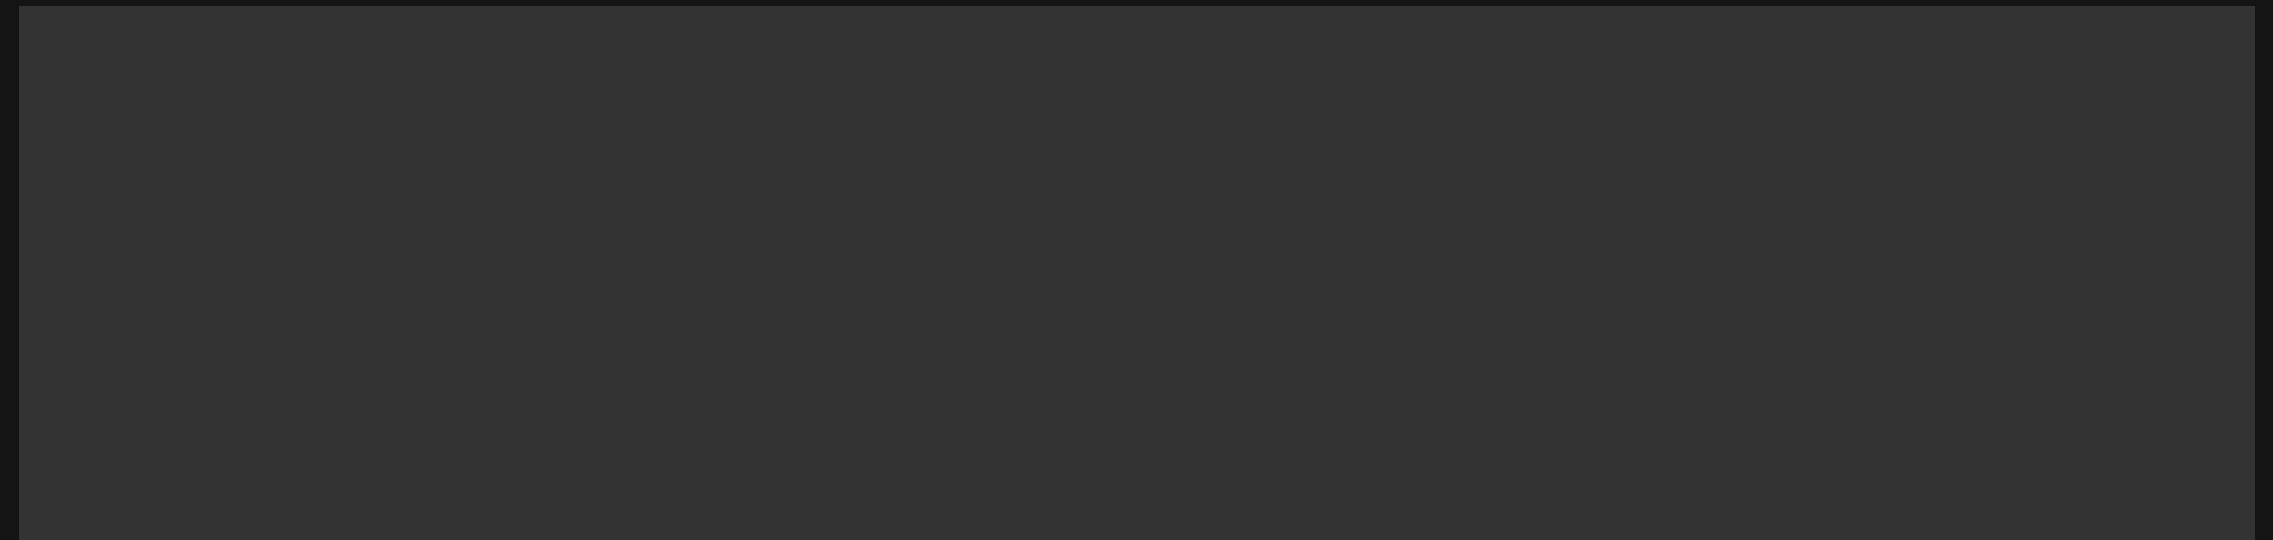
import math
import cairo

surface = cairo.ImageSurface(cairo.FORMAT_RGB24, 2273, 540)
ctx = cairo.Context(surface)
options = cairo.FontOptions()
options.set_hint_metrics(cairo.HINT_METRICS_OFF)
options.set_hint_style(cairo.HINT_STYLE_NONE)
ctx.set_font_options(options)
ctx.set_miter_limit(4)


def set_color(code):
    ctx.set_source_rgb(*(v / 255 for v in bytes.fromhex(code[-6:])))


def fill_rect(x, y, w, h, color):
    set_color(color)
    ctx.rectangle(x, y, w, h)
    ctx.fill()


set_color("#141414")
ctx.paint()
fill_rect(19, 6, 2236, 534, "#333333")
surface.write_to_png("output.png")
